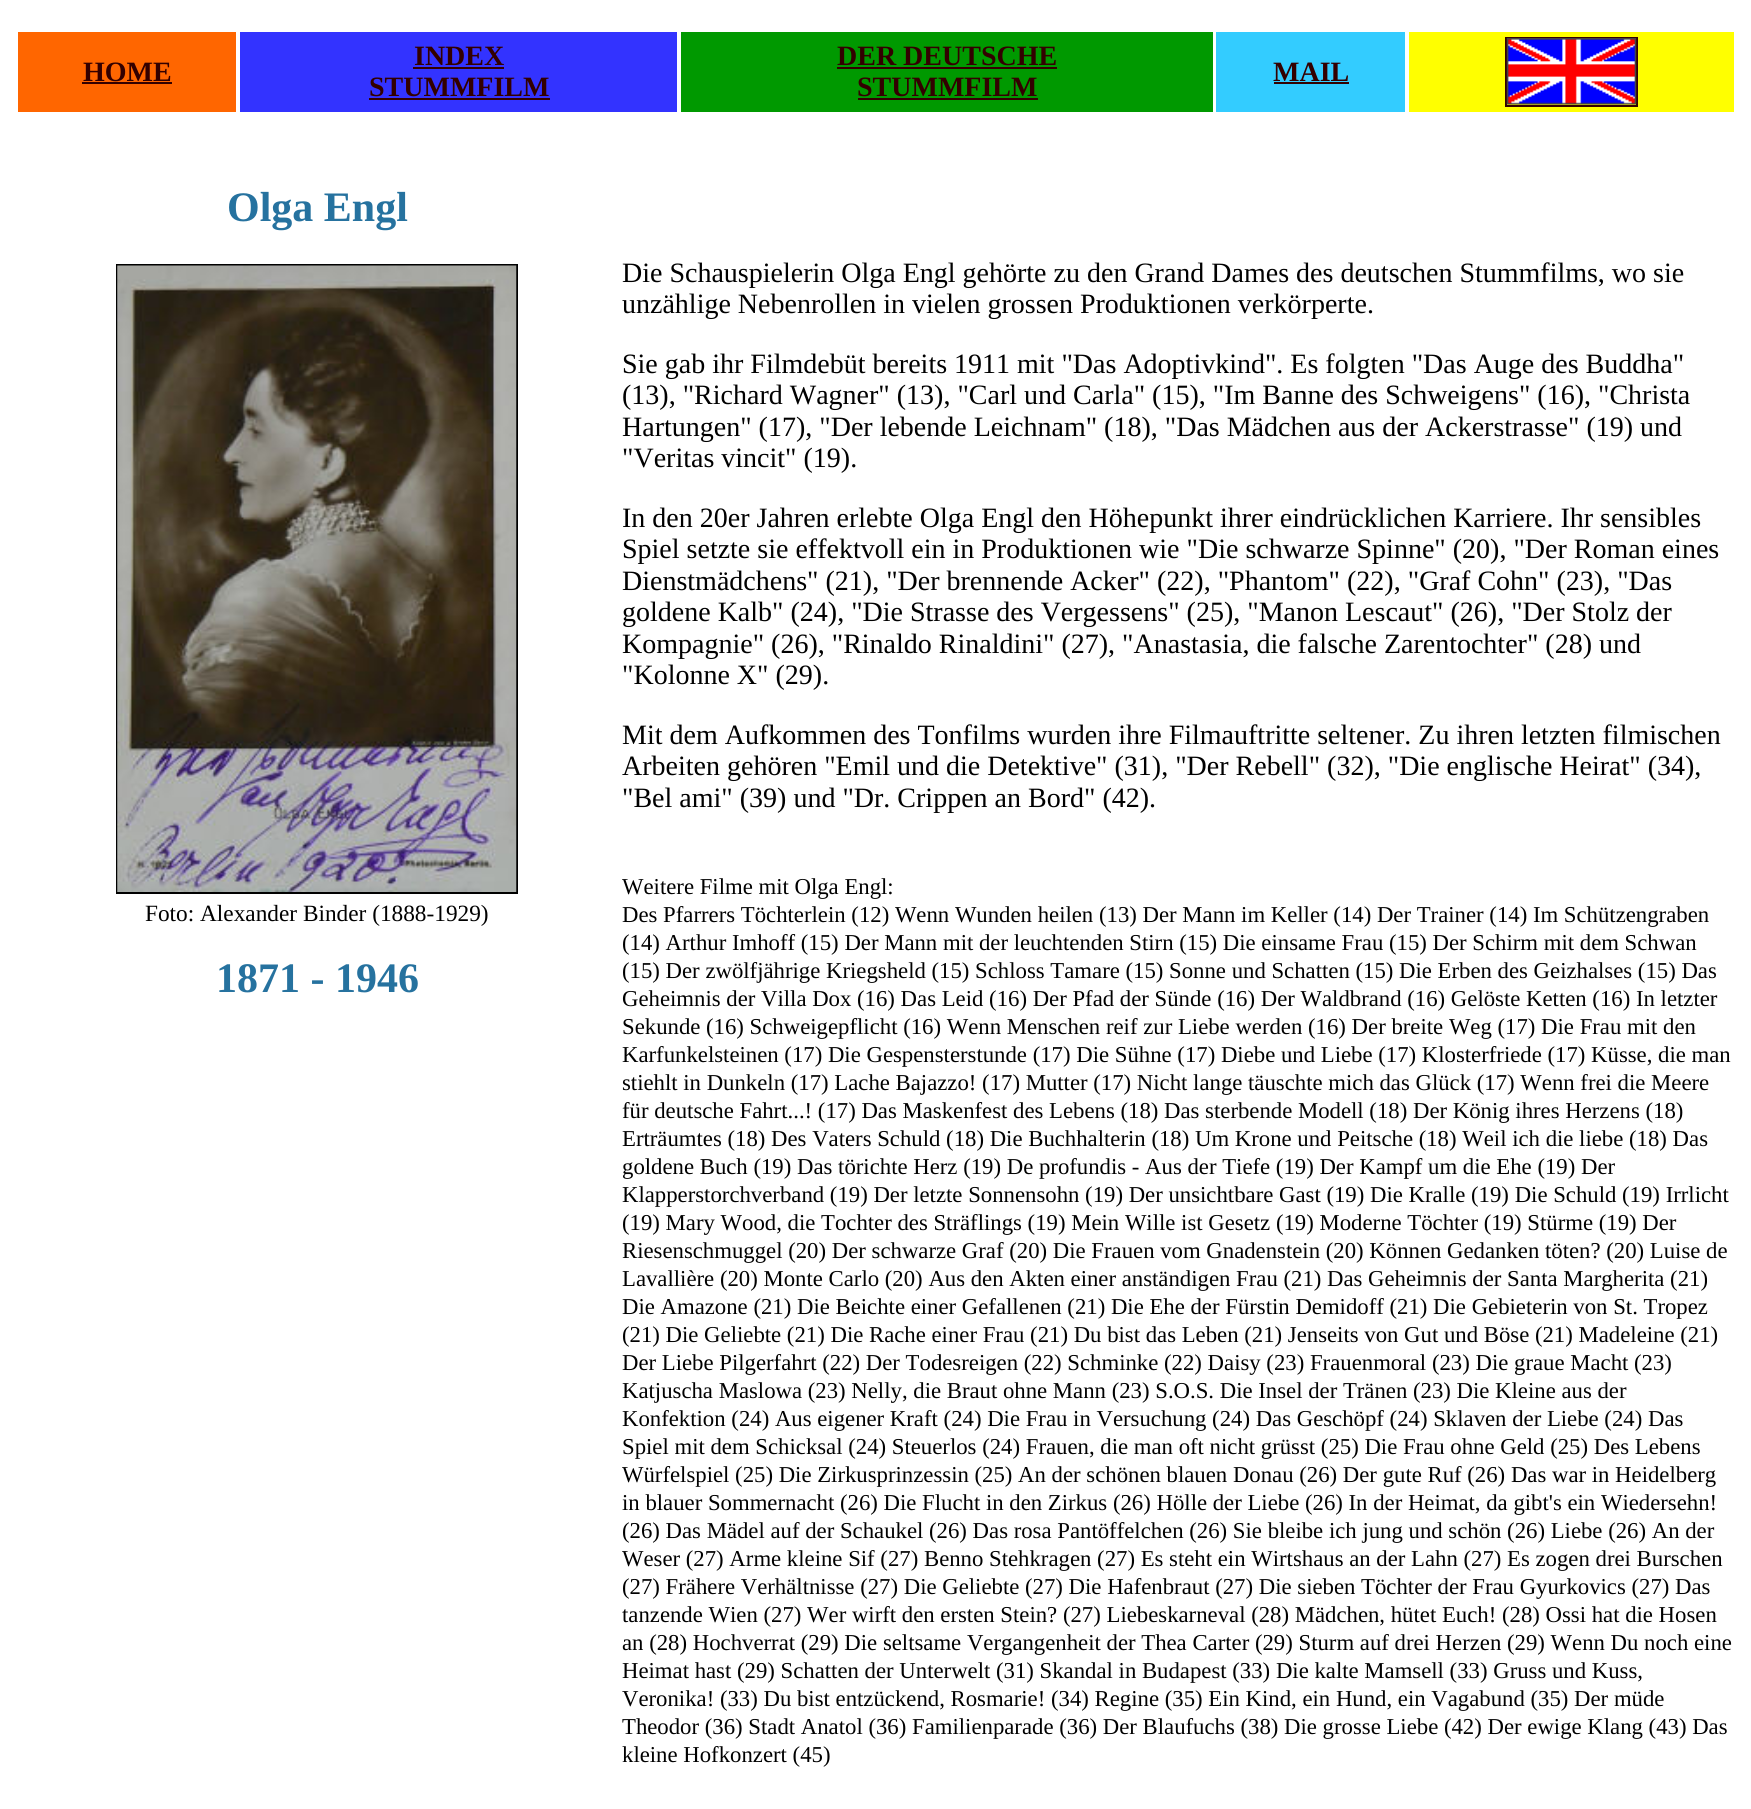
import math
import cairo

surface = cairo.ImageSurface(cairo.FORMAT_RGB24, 1751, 1809)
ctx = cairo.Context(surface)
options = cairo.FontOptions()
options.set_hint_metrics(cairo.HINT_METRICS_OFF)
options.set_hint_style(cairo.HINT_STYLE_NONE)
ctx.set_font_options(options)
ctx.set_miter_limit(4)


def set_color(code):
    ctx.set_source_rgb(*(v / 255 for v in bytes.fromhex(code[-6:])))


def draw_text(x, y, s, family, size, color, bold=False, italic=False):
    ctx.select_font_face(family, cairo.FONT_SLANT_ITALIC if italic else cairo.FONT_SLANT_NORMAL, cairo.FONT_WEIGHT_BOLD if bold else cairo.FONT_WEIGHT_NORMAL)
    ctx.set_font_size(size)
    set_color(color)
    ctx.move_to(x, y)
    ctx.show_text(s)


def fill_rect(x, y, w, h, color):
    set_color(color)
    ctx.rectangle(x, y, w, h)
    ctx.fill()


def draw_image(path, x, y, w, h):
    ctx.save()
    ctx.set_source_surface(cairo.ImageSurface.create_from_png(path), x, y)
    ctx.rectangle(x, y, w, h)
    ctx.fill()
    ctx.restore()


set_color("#ffffff")
ctx.paint()
fill_rect(18, 32, 218, 80, "#ff6600")
draw_text(83, 81, "HOME", "Liberation Serif", 28, "#330000", bold=True)
fill_rect(82, 82, 90, 2, "#330000")
fill_rect(240, 32, 437, 80, "#3333ff")
draw_text(414, 65, "INDEX", "Liberation Serif", 28, "#330000", bold=True)
fill_rect(413, 67, 91, 2, "#330000")
draw_text(369, 96, "STUMMFILM", "Liberation Serif", 28, "#330000", bold=True)
fill_rect(369, 98, 181, 2, "#330000")
fill_rect(681, 32, 532, 80, "#009900")
draw_text(837, 65, "DER DEUTSCHE", "Liberation Serif", 28, "#330000", bold=True)
fill_rect(837, 67, 220, 2, "#330000")
draw_text(857, 96, "STUMMFILM", "Liberation Serif", 28, "#330000", bold=True)
fill_rect(858, 98, 180, 2, "#330000")
fill_rect(1216, 32, 189, 80, "#33ccff")
draw_text(1273, 81, "MAIL", "Liberation Serif", 28, "#330000", bold=True)
fill_rect(1274, 82, 75, 2, "#330000")
fill_rect(1409, 32, 325, 80, "#ffff00")
ctx.rectangle(1506, 38, 131, 68)
set_color("#330000")
ctx.stroke()
draw_image("assets/img1.png", 1506, 38, 131, 67)
draw_text(227, 221, "Olga Engl", "Liberation Serif", 42, "#26729f", bold=True)
ctx.rectangle(117, 265, 400, 628)
set_color("#000000")
ctx.stroke()
draw_image("assets/img2.png", 117, 265, 400, 627)
draw_text(145, 921, "Foto: Alexander Binder (1888-1929)", "Liberation Serif", 23.3, "#000000")
draw_text(216, 992, "1871 - 1946", "Liberation Serif", 42, "#26729f", bold=True)
draw_text(622, 282, "Die Schauspielerin Olga Engl gehörte zu den Grand Dames des deutschen Stummfilms, wo sie", "Liberation Serif", 28, "#000000")
draw_text(622, 313, "unzählige Nebenrollen in vielen grossen Produktionen verkörperte.", "Liberation Serif", 28, "#000000")
draw_text(622, 373, "Sie gab ihr Filmdebüt bereits 1911 mit \"Das Adoptivkind\". Es folgten \"Das Auge des Buddha\"", "Liberation Serif", 28, "#000000")
draw_text(622, 404, "(13), \"Richard Wagner\" (13), \"Carl und Carla\" (15), \"Im Banne des Schweigens\" (16), \"Christa", "Liberation Serif", 28, "#000000")
draw_text(622, 436, "Hartungen\" (17), \"Der lebende Leichnam\" (18), \"Das Mädchen aus der Ackerstrasse\" (19) und", "Liberation Serif", 28, "#000000")
draw_text(622, 467, "\"Veritas vincit\" (19).", "Liberation Serif", 28, "#000000")
draw_text(622, 527, "In den 20er Jahren erlebte Olga Engl den Höhepunkt ihrer eindrücklichen Karriere. Ihr sensibles", "Liberation Serif", 28, "#000000")
draw_text(622, 558, "Spiel setzte sie effektvoll ein in Produktionen wie \"Die schwarze Spinne\" (20), \"Der Roman eines", "Liberation Serif", 28, "#000000")
draw_text(622, 590, "Dienstmädchens\" (21), \"Der brennende Acker\" (22), \"Phantom\" (22), \"Graf Cohn\" (23), \"Das", "Liberation Serif", 28, "#000000")
draw_text(622, 621, "goldene Kalb\" (24), \"Die Strasse des Vergessens\" (25), \"Manon Lescaut\" (26), \"Der Stolz der", "Liberation Serif", 28, "#000000")
draw_text(622, 653, "Kompagnie\" (26), \"Rinaldo Rinaldini\" (27), \"Anastasia, die falsche Zarentochter\" (28) und", "Liberation Serif", 28, "#000000")
draw_text(622, 684, "\"Kolonne X\" (29).", "Liberation Serif", 28, "#000000")
draw_text(622, 744, "Mit dem Aufkommen des Tonfilms wurden ihre Filmauftritte seltener. Zu ihren letzten filmischen", "Liberation Serif", 28, "#000000")
draw_text(622, 775, "Arbeiten gehören \"Emil und die Detektive\" (31), \"Der Rebell\" (32), \"Die englische Heirat\" (34),", "Liberation Serif", 28, "#000000")
draw_text(622, 807, "\"Bel ami\" (39) und \"Dr. Crippen an Bord\" (42).", "Liberation Serif", 28, "#000000")
draw_text(622, 894, "Weitere Filme mit Olga Engl:", "Liberation Serif", 22.75, "#000000")
draw_text(622, 922, "Des Pfarrers Töchterlein (12) Wenn Wunden heilen (13) Der Mann im Keller (14) Der Trainer (14) Im Schützengraben", "Liberation Serif", 22.75, "#000000")
draw_text(622, 950, "(14) Arthur Imhoff (15) Der Mann mit der leuchtenden Stirn (15) Die einsame Frau (15) Der Schirm mit dem Schwan", "Liberation Serif", 22.75, "#000000")
draw_text(622, 978, "(15) Der zwölfjährige Kriegsheld (15) Schloss Tamare (15) Sonne und Schatten (15) Die Erben des Geizhalses (15) Das", "Liberation Serif", 22.75, "#000000")
draw_text(622, 1006, "Geheimnis der Villa Dox (16) Das Leid (16) Der Pfad der Sünde (16) Der Waldbrand (16) Gelöste Ketten (16) In letzter", "Liberation Serif", 22.75, "#000000")
draw_text(622, 1034, "Sekunde (16) Schweigepflicht (16) Wenn Menschen reif zur Liebe werden (16) Der breite Weg (17) Die Frau mit den", "Liberation Serif", 22.75, "#000000")
draw_text(622, 1062, "Karfunkelsteinen (17) Die Gespensterstunde (17) Die Sühne (17) Diebe und Liebe (17) Klosterfriede (17) Küsse, die man", "Liberation Serif", 22.75, "#000000")
draw_text(622, 1090, "stiehlt in Dunkeln (17) Lache Bajazzo! (17) Mutter (17) Nicht lange täuschte mich das Glück (17) Wenn frei die Meere", "Liberation Serif", 22.75, "#000000")
draw_text(622, 1118, "für deutsche Fahrt...! (17) Das Maskenfest des Lebens (18) Das sterbende Modell (18) Der König ihres Herzens (18)", "Liberation Serif", 22.75, "#000000")
draw_text(622, 1146, "Erträumtes (18) Des Vaters Schuld (18) Die Buchhalterin (18) Um Krone und Peitsche (18) Weil ich die liebe (18) Das", "Liberation Serif", 22.75, "#000000")
draw_text(622, 1174, "goldene Buch (19) Das törichte Herz (19) De profundis - Aus der Tiefe (19) Der Kampf um die Ehe (19) Der", "Liberation Serif", 22.75, "#000000")
draw_text(622, 1202, "Klapperstorchverband (19) Der letzte Sonnensohn (19) Der unsichtbare Gast (19) Die Kralle (19) Die Schuld (19) Irrlicht", "Liberation Serif", 22.75, "#000000")
draw_text(622, 1230, "(19) Mary Wood, die Tochter des Sträflings (19) Mein Wille ist Gesetz (19) Moderne Töchter (19) Stürme (19) Der", "Liberation Serif", 22.75, "#000000")
draw_text(622, 1258, "Riesenschmuggel (20) Der schwarze Graf (20) Die Frauen vom Gnadenstein (20) Können Gedanken töten? (20) Luise de", "Liberation Serif", 22.75, "#000000")
draw_text(622, 1286, "Lavallière (20) Monte Carlo (20) Aus den Akten einer anständigen Frau (21) Das Geheimnis der Santa Margherita (21)", "Liberation Serif", 22.75, "#000000")
draw_text(622, 1314, "Die Amazone (21) Die Beichte einer Gefallenen (21) Die Ehe der Fürstin Demidoff (21) Die Gebieterin von St. Tropez", "Liberation Serif", 22.75, "#000000")
draw_text(622, 1342, "(21) Die Geliebte (21) Die Rache einer Frau (21) Du bist das Leben (21) Jenseits von Gut und Böse (21) Madeleine (21)", "Liberation Serif", 22.75, "#000000")
draw_text(622, 1370, "Der Liebe Pilgerfahrt (22) Der Todesreigen (22) Schminke (22) Daisy (23) Frauenmoral (23) Die graue Macht (23)", "Liberation Serif", 22.75, "#000000")
draw_text(622, 1398, "Katjuscha Maslowa (23) Nelly, die Braut ohne Mann (23) S.O.S. Die Insel der Tränen (23) Die Kleine aus der", "Liberation Serif", 22.75, "#000000")
draw_text(622, 1426, "Konfektion (24) Aus eigener Kraft (24) Die Frau in Versuchung (24) Das Geschöpf (24) Sklaven der Liebe (24) Das", "Liberation Serif", 22.75, "#000000")
draw_text(622, 1454, "Spiel mit dem Schicksal (24) Steuerlos (24) Frauen, die man oft nicht grüsst (25) Die Frau ohne Geld (25) Des Lebens", "Liberation Serif", 22.75, "#000000")
draw_text(622, 1482, "Würfelspiel (25) Die Zirkusprinzessin (25) An der schönen blauen Donau (26) Der gute Ruf (26) Das war in Heidelberg", "Liberation Serif", 22.75, "#000000")
draw_text(622, 1510, "in blauer Sommernacht (26) Die Flucht in den Zirkus (26) Hölle der Liebe (26) In der Heimat, da gibt's ein Wiedersehn!", "Liberation Serif", 22.75, "#000000")
draw_text(622, 1538, "(26) Das Mädel auf der Schaukel (26) Das rosa Pantöffelchen (26) Sie bleibe ich jung und schön (26) Liebe (26) An der", "Liberation Serif", 22.75, "#000000")
draw_text(622, 1566, "Weser (27) Arme kleine Sif (27) Benno Stehkragen (27) Es steht ein Wirtshaus an der Lahn (27) Es zogen drei Burschen", "Liberation Serif", 22.75, "#000000")
draw_text(622, 1594, "(27) Frähere Verhältnisse (27) Die Geliebte (27) Die Hafenbraut (27) Die sieben Töchter der Frau Gyurkovics (27) Das", "Liberation Serif", 22.75, "#000000")
draw_text(622, 1622, "tanzende Wien (27) Wer wirft den ersten Stein? (27) Liebeskarneval (28) Mädchen, hütet Euch! (28) Ossi hat die Hosen", "Liberation Serif", 22.75, "#000000")
draw_text(622, 1650, "an (28) Hochverrat (29) Die seltsame Vergangenheit der Thea Carter (29) Sturm auf drei Herzen (29) Wenn Du noch eine", "Liberation Serif", 22.75, "#000000")
draw_text(622, 1678, "Heimat hast (29) Schatten der Unterwelt (31) Skandal in Budapest (33) Die kalte Mamsell (33) Gruss und Kuss,", "Liberation Serif", 22.75, "#000000")
draw_text(622, 1706, "Veronika! (33) Du bist entzückend, Rosmarie! (34) Regine (35) Ein Kind, ein Hund, ein Vagabund (35) Der müde", "Liberation Serif", 22.75, "#000000")
draw_text(622, 1734, "Theodor (36) Stadt Anatol (36) Familienparade (36) Der Blaufuchs (38) Die grosse Liebe (42) Der ewige Klang (43) Das", "Liberation Serif", 22.75, "#000000")
draw_text(622, 1762, "kleine Hofkonzert (45)", "Liberation Serif", 22.75, "#000000")
surface.write_to_png("output.png")
